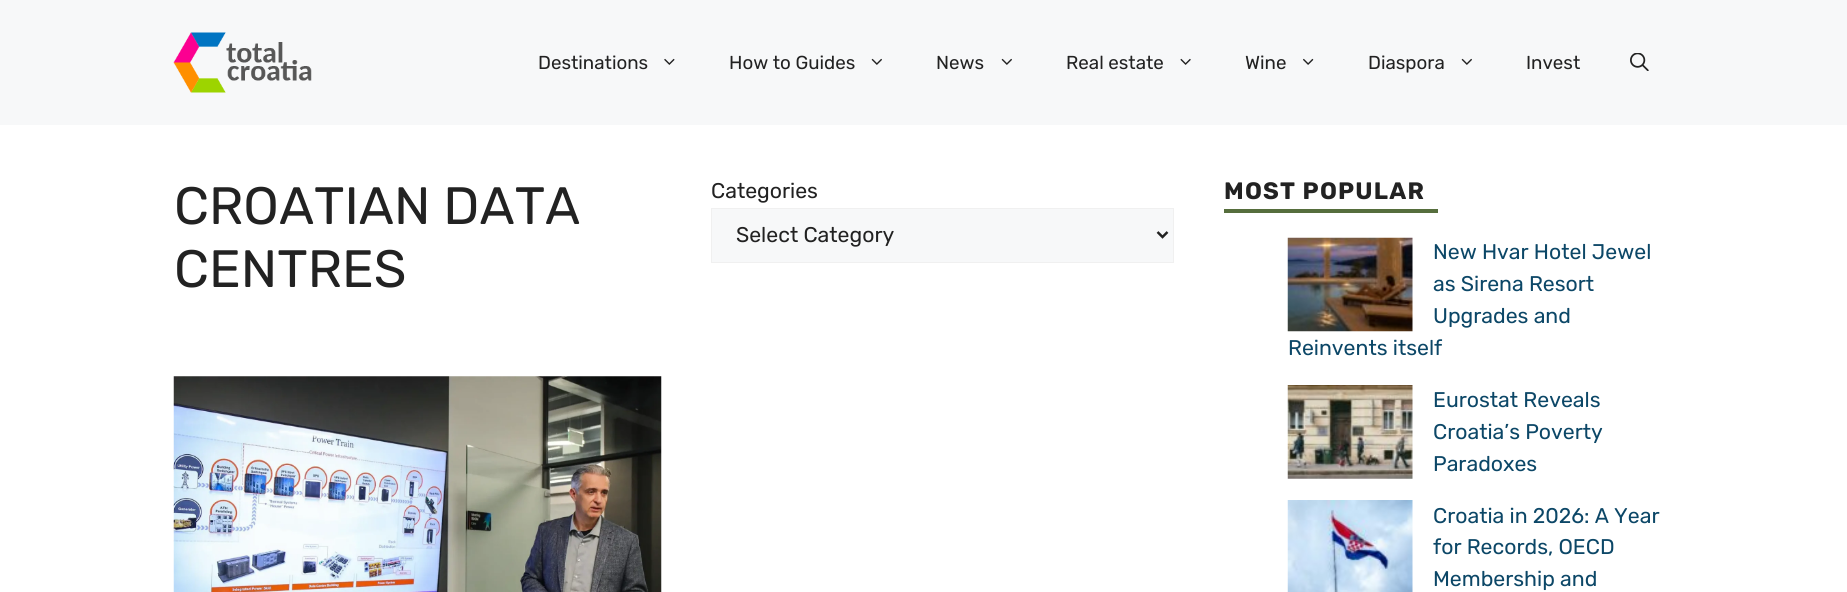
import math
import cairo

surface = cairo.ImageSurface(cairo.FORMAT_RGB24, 1847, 592)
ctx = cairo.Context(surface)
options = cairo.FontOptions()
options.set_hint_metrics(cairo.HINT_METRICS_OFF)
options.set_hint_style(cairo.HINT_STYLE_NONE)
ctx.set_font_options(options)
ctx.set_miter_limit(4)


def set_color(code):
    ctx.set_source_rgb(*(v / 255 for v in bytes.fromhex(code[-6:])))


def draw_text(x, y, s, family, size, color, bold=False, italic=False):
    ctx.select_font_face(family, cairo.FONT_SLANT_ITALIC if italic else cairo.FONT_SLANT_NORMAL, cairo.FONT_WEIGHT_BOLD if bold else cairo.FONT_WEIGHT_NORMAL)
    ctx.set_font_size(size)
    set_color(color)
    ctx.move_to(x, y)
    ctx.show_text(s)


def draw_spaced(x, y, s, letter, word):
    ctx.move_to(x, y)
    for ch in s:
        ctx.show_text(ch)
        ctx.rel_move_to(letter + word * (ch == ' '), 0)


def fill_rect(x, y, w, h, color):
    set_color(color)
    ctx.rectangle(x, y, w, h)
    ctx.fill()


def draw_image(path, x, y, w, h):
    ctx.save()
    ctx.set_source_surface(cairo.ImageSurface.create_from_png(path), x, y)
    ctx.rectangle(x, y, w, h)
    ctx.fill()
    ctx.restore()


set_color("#ffffff")
ctx.paint()
fill_rect(0, 0, 1847, 125, "#f7f8f9")
draw_image("assets/img1.png", 173, 32, 139, 61)
draw_text(538, 69, "Destinations", "Rubik", 18.75, "#222222")
draw_image("assets/img2.png", 664, 58, 11, 7)
draw_text(729, 69, "How to Guides", "Rubik", 18.75, "#222222")
draw_image("assets/img3.png", 871, 58, 11, 7)
draw_text(936, 69, "News", "Rubik", 18.75, "#222222")
draw_image("assets/img3.png", 1001, 58, 11, 7)
draw_text(1066, 69, "Real estate", "Rubik", 18.75, "#222222")
draw_image("assets/img4.png", 1180, 58, 11, 7)
draw_text(1245, 69, "Wine", "Rubik", 18.75, "#222222")
draw_image("assets/img5.png", 1303, 58, 11, 7)
draw_text(1368, 69, "Diaspora", "Rubik", 18.75, "#222222")
draw_image("assets/img3.png", 1461, 58, 11, 7)
draw_text(1526, 69, "Invest", "Rubik", 18.75, "#222222")
draw_image("assets/img6.png", 1630, 53, 19, 18)
draw_text(174, 224, "CROATIAN DATA", "Rubik", 52.5, "#222222")
draw_text(174, 287, "CENTRES", "Rubik", 52.5, "#222222")
draw_text(711, 198, "Categories", "Rubik", 21.25, "#222222")
set_color("#f7f8f9")
ctx.rectangle(711.5, 208.5, 462, 54)
ctx.fill_preserve()
set_color("#f0f0f0")
ctx.set_line_width(1)
ctx.stroke()
ctx.new_path()
ctx.move_to(1157.5, 232)
ctx.line_to(1162.5, 237)
ctx.line_to(1167.5, 232)
set_color("#222222")
ctx.set_line_width(2.5)
ctx.stroke()
draw_text(736, 242, "Select Category", "Rubik", 21.25, "#222222")
draw_image("assets/img7.png", 173, 376, 489, 216)
ctx.select_font_face("Rubik", cairo.FONT_SLANT_NORMAL, cairo.FONT_WEIGHT_BOLD)
ctx.set_font_size(23.75)
draw_spaced(1224, 199, "MOST POPULAR", 1.25, 0)
fill_rect(1224, 209, 214, 4, "#566e3d")
draw_image("assets/img8.png", 1287, 237, 126, 95)
draw_text(1433, 259, "New Hvar Hotel Jewel", "Rubik", 21.25, "#0c4767")
draw_text(1433, 291, "as Sirena Resort", "Rubik", 21.25, "#0c4767")
draw_text(1433, 323, "Upgrades and", "Rubik", 21.25, "#0c4767")
draw_text(1288, 355, "Reinvents itself", "Rubik", 21.25, "#0c4767")
draw_image("assets/img9.png", 1287, 385, 126, 94)
draw_text(1433, 407, "Eurostat Reveals", "Rubik", 21.25, "#0c4767")
draw_text(1433, 439, "Croatia’s Poverty", "Rubik", 21.25, "#0c4767")
draw_text(1433, 471, "Paradoxes", "Rubik", 21.25, "#0c4767")
draw_image("assets/img10.png", 1287, 500, 126, 92)
draw_text(1433, 523, "Croatia in 2026: A Year", "Rubik", 21.25, "#0c4767")
draw_text(1433, 554, "for Records, OECD", "Rubik", 21.25, "#0c4767")
draw_text(1433, 586, "Membership and", "Rubik", 21.25, "#0c4767")
surface.write_to_png("output.png")
